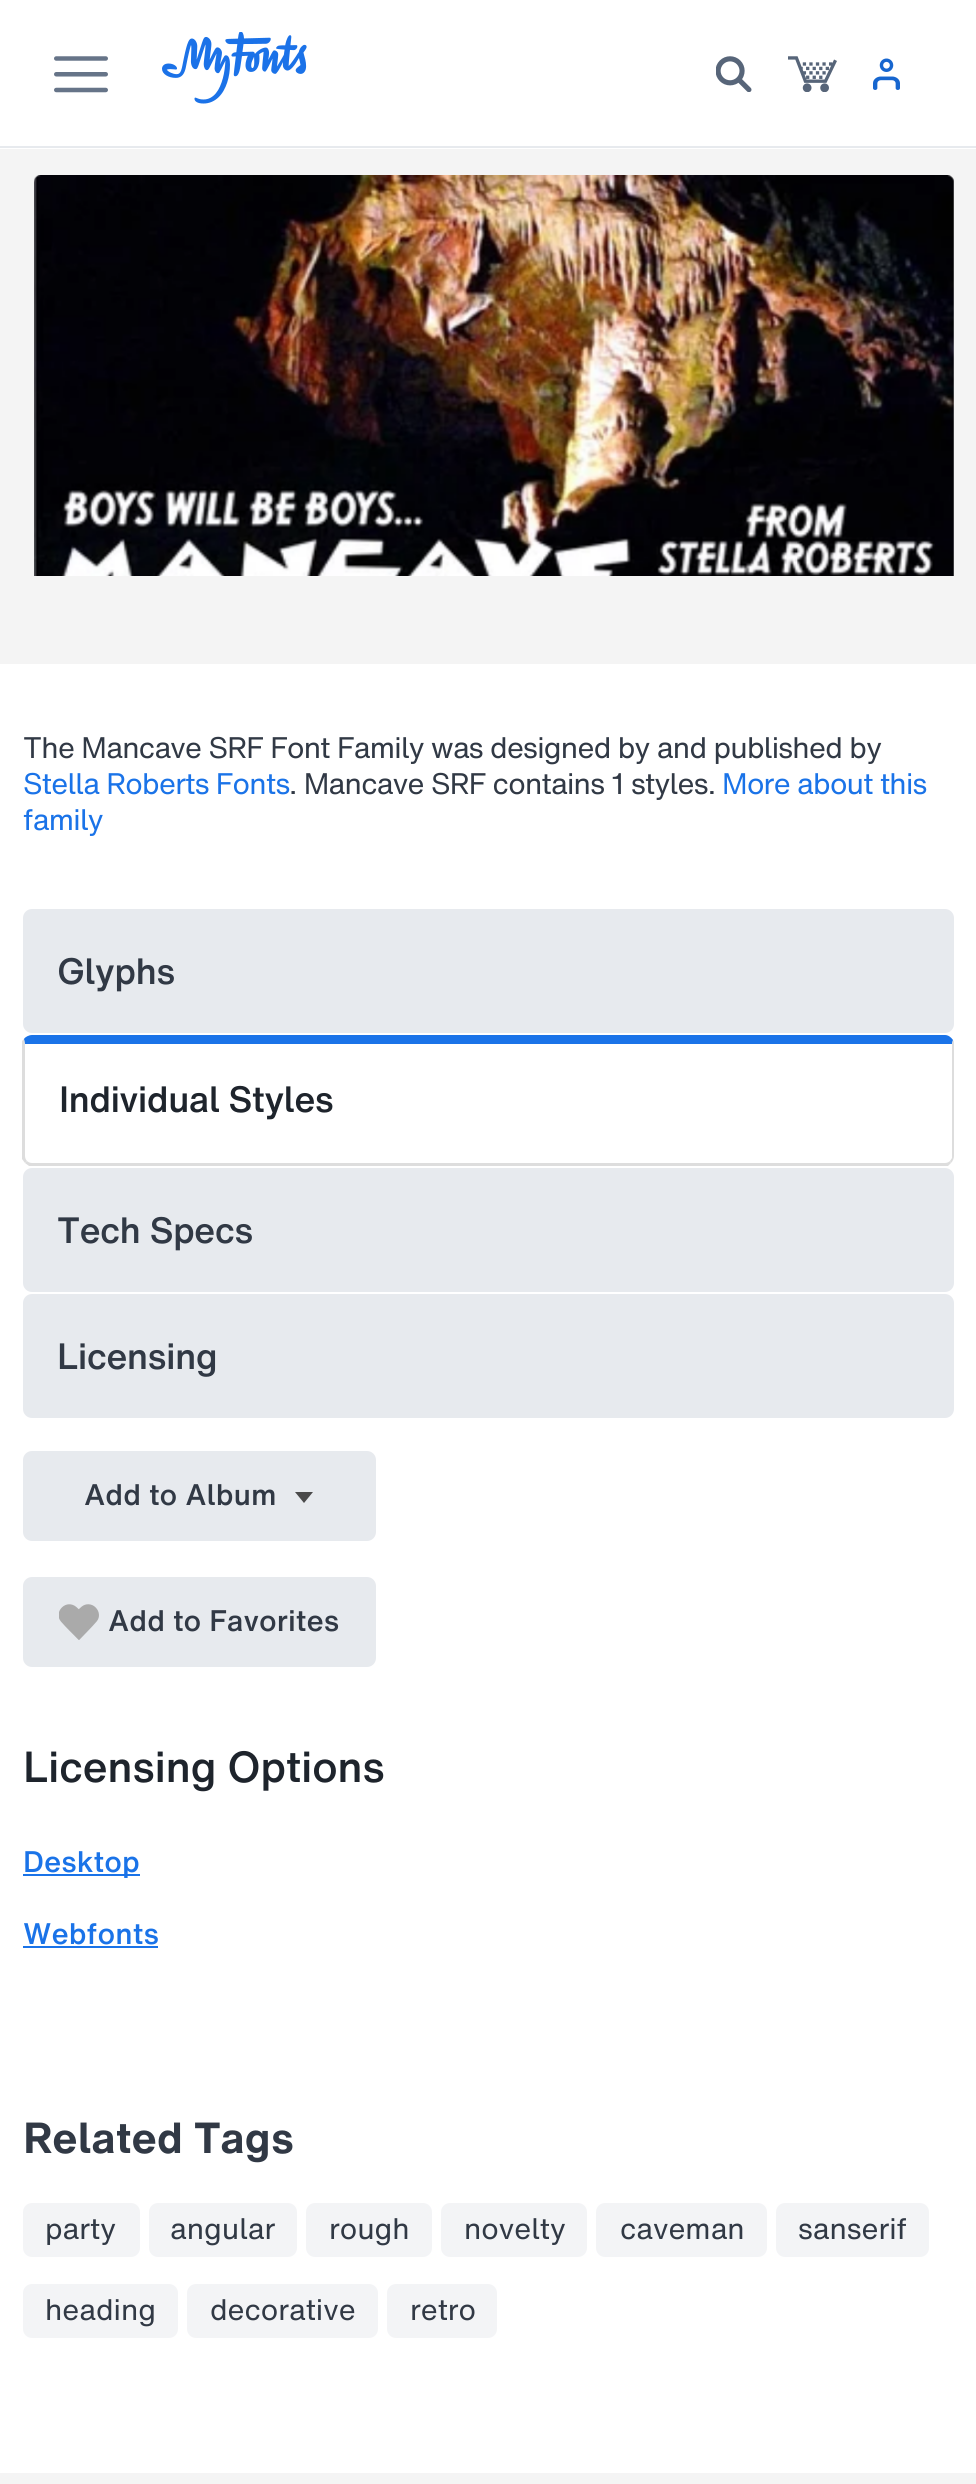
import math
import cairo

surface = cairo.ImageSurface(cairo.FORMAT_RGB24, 976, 2484)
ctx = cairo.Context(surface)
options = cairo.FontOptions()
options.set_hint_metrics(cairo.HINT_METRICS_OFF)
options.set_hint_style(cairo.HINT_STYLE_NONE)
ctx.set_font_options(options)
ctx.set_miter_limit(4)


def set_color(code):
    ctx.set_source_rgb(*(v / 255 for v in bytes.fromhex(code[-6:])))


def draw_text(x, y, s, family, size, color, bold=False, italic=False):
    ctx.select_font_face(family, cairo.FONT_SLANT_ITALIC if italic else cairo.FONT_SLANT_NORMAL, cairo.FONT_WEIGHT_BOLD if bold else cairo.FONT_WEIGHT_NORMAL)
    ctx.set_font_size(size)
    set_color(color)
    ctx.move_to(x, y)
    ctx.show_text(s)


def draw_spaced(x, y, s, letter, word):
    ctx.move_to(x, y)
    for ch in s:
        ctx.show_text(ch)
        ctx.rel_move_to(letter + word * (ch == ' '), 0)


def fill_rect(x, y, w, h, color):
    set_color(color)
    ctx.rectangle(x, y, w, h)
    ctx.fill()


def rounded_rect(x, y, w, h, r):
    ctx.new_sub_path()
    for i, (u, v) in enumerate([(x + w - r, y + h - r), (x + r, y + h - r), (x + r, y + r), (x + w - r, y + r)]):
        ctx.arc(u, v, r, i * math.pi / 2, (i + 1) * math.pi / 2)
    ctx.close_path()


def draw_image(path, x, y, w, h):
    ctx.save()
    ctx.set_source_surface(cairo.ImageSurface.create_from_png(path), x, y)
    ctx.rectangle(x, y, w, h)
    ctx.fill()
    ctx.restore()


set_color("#ffffff")
ctx.paint()
fill_rect(0, 146, 976, 2, "#e7eaee")
draw_image("assets/img1.png", 54, 56, 54, 37)
draw_image("assets/img2.png", 162, 32, 145, 72)
draw_image("assets/img3.png", 716, 56, 36, 36)
draw_image("assets/img4.png", 788, 56, 49, 36)
draw_image("assets/img5.png", 873, 58, 27, 32)
fill_rect(0, 149, 976, 515, "#f4f4f4")
draw_image("assets/img6.png", 34, 175, 920, 401)
ctx.select_font_face("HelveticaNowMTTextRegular")
ctx.set_font_size(29.25)
set_color("#313945")
draw_spaced(23, 758, "The Mancave SRF Font Family was designed by and published by", -0.72, 0)
set_color("#1a73e8")
draw_spaced(23, 794, "Stella Roberts Fonts", -0.72, 0)
set_color("#313945")
draw_spaced(289, 794, ". Mancave SRF contains 1 styles.", -0.72, 0)
set_color("#1a73e8")
draw_spaced(722, 794, "More about this", -0.72, 0)
draw_spaced(23, 830, "family", -0.72, 0)
set_color("#e7eaee")
rounded_rect(23, 909, 931, 124, 9)
ctx.fill()
ctx.select_font_face("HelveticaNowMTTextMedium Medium")
ctx.set_font_size(36)
set_color("#313945")
draw_spaced(57, 984, "Glyphs", -0.72, 0)
set_color("#1a73e8")
ctx.new_path()
ctx.move_to(32, 1035)
ctx.curve_to(29, 1035, 25, 1037, 24, 1039)
ctx.line_to(25, 1045)
ctx.line_to(25, 1044)
ctx.line_to(952, 1044)
ctx.line_to(953, 1040)
ctx.curve_to(951, 1037, 948, 1035, 945, 1035)
ctx.close_path()
ctx.fill()
set_color("#dddddd")
ctx.new_path()
ctx.move_to(954, 1156)
ctx.line_to(954, 1044)
ctx.curve_to(954, 1042, 954, 1041, 953, 1040)
ctx.line_to(952, 1044)
ctx.line_to(952, 1158)
ctx.line_to(950, 1161)
ctx.line_to(951, 1163)
ctx.curve_to(953, 1161, 954, 1158, 954, 1156)
ctx.close_path()
ctx.fill()
ctx.new_path()
ctx.move_to(29, 1166)
ctx.line_to(25, 1163)
ctx.line_to(27, 1161)
ctx.curve_to(28, 1162, 30, 1163, 32, 1163)
ctx.line_to(945, 1163)
ctx.curve_to(947, 1163, 949, 1162, 950, 1161)
ctx.line_to(951, 1163)
ctx.line_to(948, 1166)
ctx.close_path()
ctx.fill()
ctx.new_path()
ctx.move_to(22, 1041)
ctx.line_to(24, 1039)
ctx.line_to(25, 1045)
ctx.line_to(25, 1156)
ctx.curve_to(25, 1158, 26, 1160, 27, 1161)
ctx.line_to(25, 1163)
ctx.line_to(22, 1159)
ctx.close_path()
ctx.fill()
set_color("#1e242c")
draw_spaced(59, 1112, "Individual Styles", -0.72, 0)
set_color("#e7eaee")
rounded_rect(23, 1168, 931, 124, 9)
ctx.fill()
set_color("#313945")
draw_spaced(57, 1243, "Tech Specs", -0.72, 0)
set_color("#e7eaee")
rounded_rect(23, 1294, 931, 124, 9)
ctx.fill()
set_color("#313945")
draw_spaced(57, 1369, "Licensing", -0.72, 0)
set_color("#e7eaee")
rounded_rect(23, 1451, 353, 90, 9)
ctx.fill()
draw_text(84, 1505, "Add to Album", "HelveticaNowMTTextMedium Medium", 29.25, "#313945")
set_color("#4a4a4a")
ctx.new_path()
ctx.move_to(295, 1492)
ctx.line_to(313, 1492)
ctx.line_to(304, 1503)
ctx.close_path()
ctx.fill()
set_color("#e7eaee")
rounded_rect(23, 1577, 353, 90, 9)
ctx.fill()
draw_image("assets/img7.png", 59, 1604, 40, 36)
draw_text(108, 1631, "Add to Favorites", "HelveticaNowMTTextMedium Medium", 29.25, "#313945")
ctx.set_font_size(42.75)
set_color("#1e242c")
draw_spaced(23, 1782, "Licensing Options", -0.5, 0)
fill_rect(23, 1874, 117, 2, "#1a73e8")
draw_text(23, 1872, "Desktop", "HelveticaNowMTTextMedium Medium", 29.25, "#1a73e8")
draw_text(23, 1944, "Webfonts", "HelveticaNowMTTextMedium Medium", 29.25, "#1a73e8")
fill_rect(23, 1946, 135, 2, "#1a73e8")
ctx.select_font_face("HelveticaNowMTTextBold", cairo.FONT_SLANT_NORMAL, cairo.FONT_WEIGHT_BOLD)
ctx.set_font_size(42.75)
set_color("#313945")
draw_spaced(23, 2153, "Related Tags", -0.5, 0)
set_color("#f3f4f6")
rounded_rect(23, 2203, 117, 54, 9)
ctx.fill()
draw_text(45, 2239, "party", "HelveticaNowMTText", 29.25, "#313945")
set_color("#f3f4f6")
rounded_rect(149, 2203, 148, 54, 9)
ctx.fill()
draw_text(170, 2239, "angular", "HelveticaNowMTText", 29.25, "#313945")
set_color("#f3f4f6")
rounded_rect(306, 2203, 126, 54, 9)
ctx.fill()
draw_text(329, 2239, "rough", "HelveticaNowMTText", 29.25, "#313945")
set_color("#f3f4f6")
rounded_rect(441, 2203, 146, 54, 9)
ctx.fill()
draw_text(464, 2239, "novelty", "HelveticaNowMTText", 29.25, "#313945")
set_color("#f3f4f6")
rounded_rect(596, 2203, 171, 54, 9)
ctx.fill()
draw_text(620, 2239, "caveman", "HelveticaNowMTText", 29.25, "#313945")
set_color("#f3f4f6")
rounded_rect(776, 2203, 153, 54, 9)
ctx.fill()
draw_text(798, 2239, "sanserif", "HelveticaNowMTText", 29.25, "#313945")
set_color("#f3f4f6")
rounded_rect(23, 2284, 155, 54, 9)
ctx.fill()
draw_text(45, 2320, "heading", "HelveticaNowMTText", 29.25, "#313945")
set_color("#f3f4f6")
rounded_rect(187, 2284, 191, 54, 9)
ctx.fill()
draw_text(210, 2320, "decorative", "HelveticaNowMTText", 29.25, "#313945")
set_color("#f3f4f6")
rounded_rect(387, 2284, 110, 54, 9)
ctx.fill()
draw_text(410, 2320, "retro", "HelveticaNowMTText", 29.25, "#313945")
fill_rect(0, 2473, 976, 11, "#f4f4f4")
surface.write_to_png("output.png")
